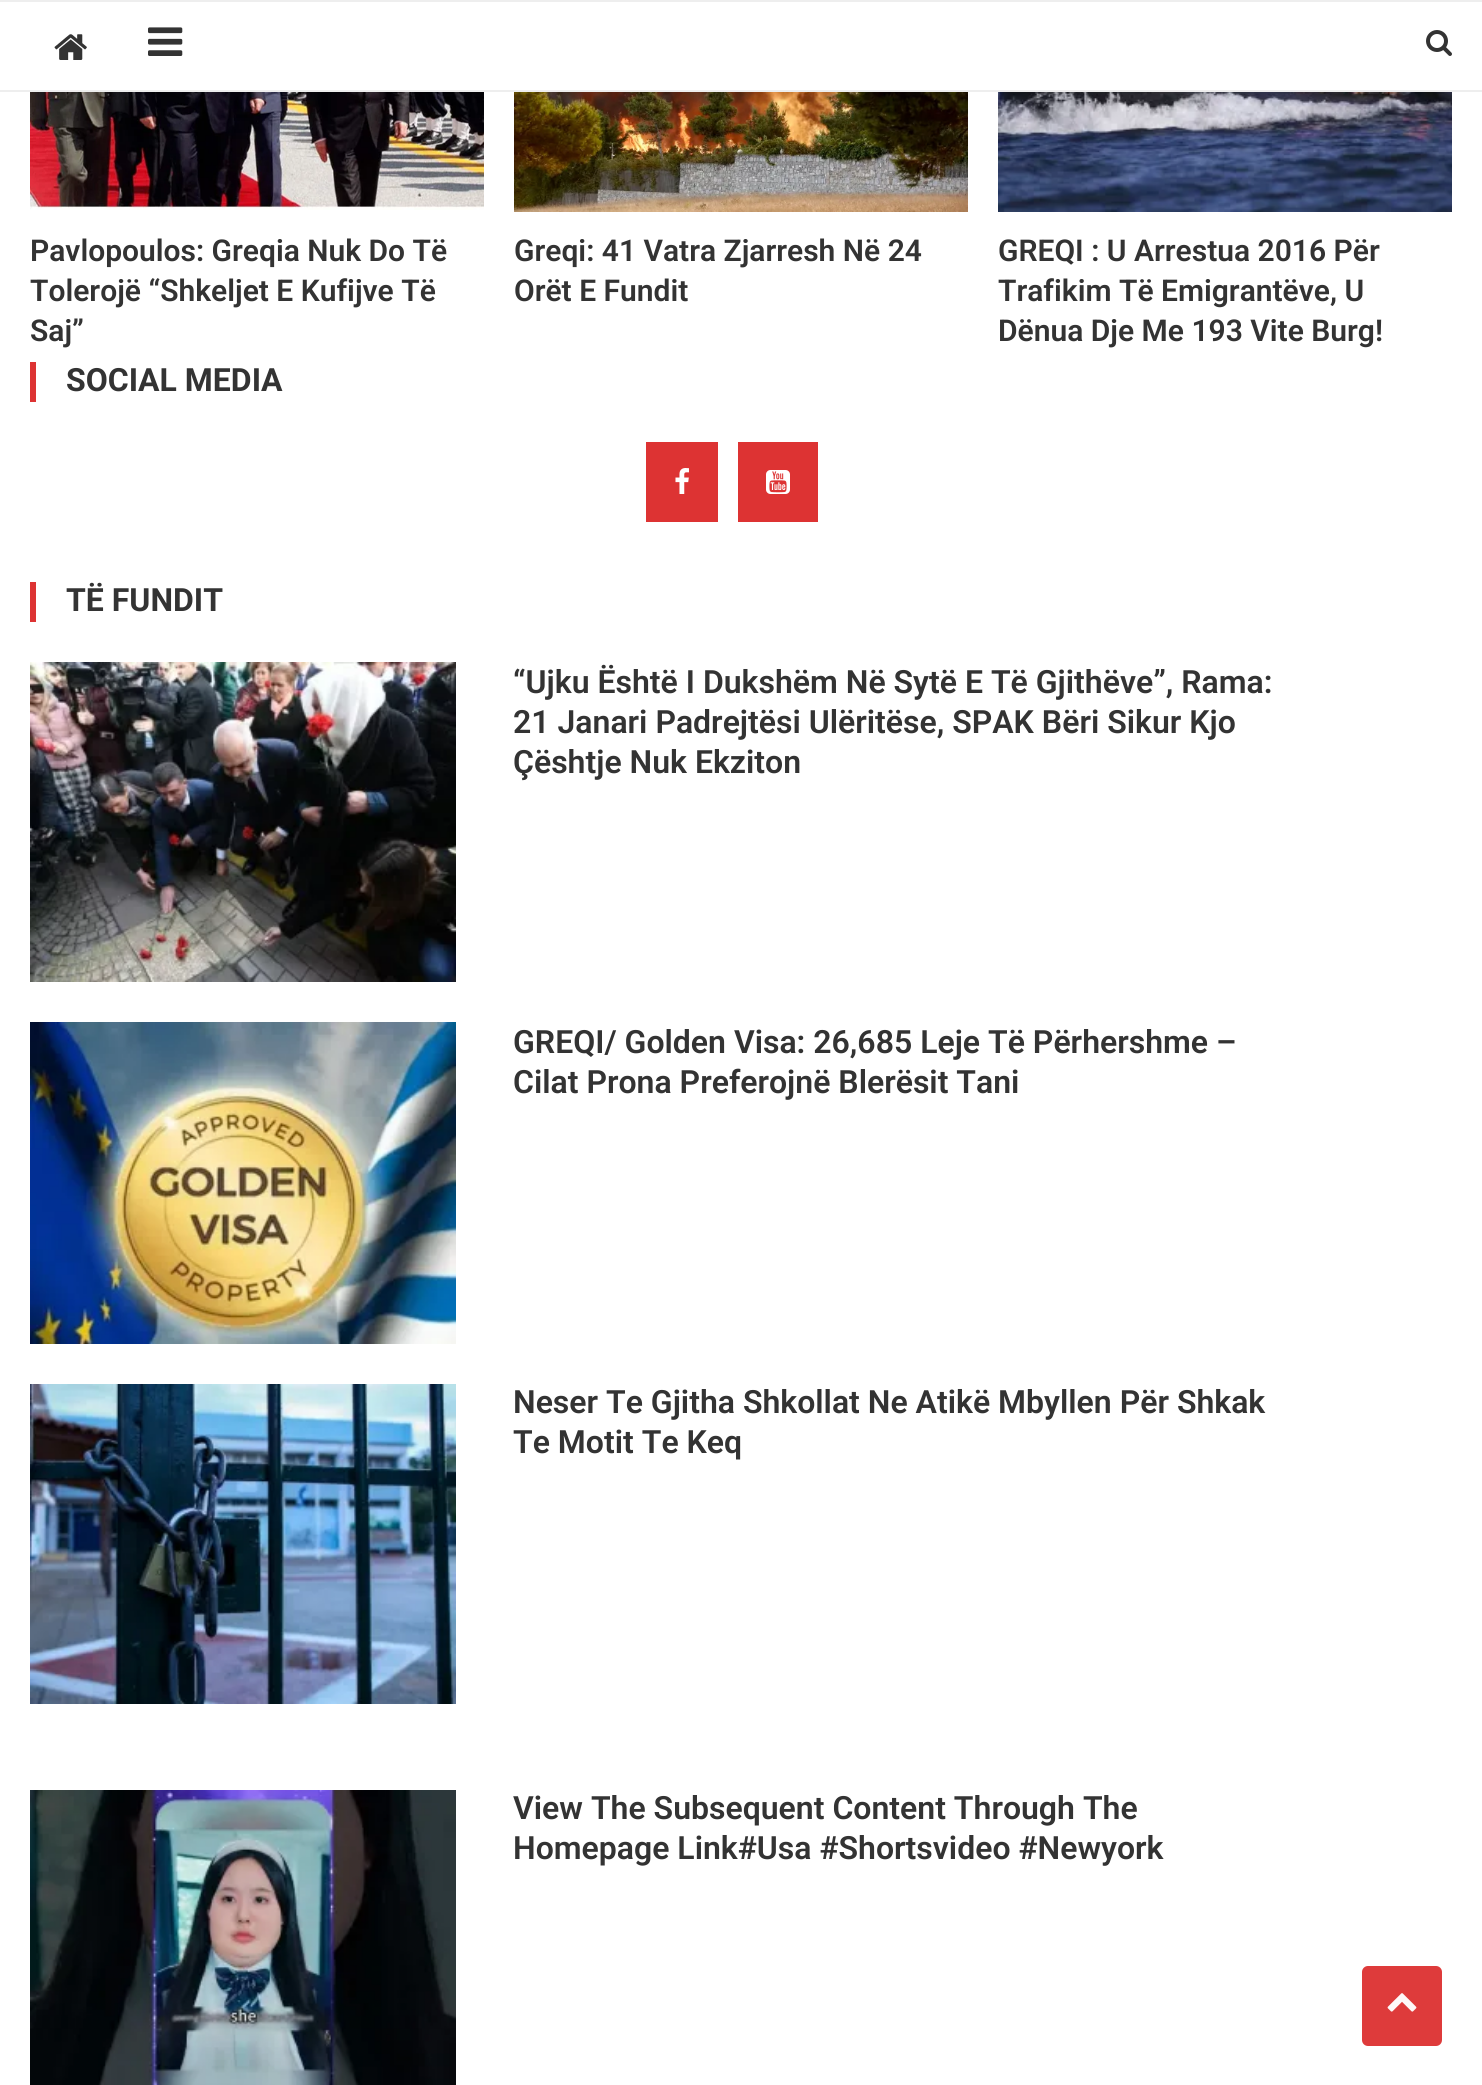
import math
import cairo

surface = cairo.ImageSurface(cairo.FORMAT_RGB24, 1482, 2085)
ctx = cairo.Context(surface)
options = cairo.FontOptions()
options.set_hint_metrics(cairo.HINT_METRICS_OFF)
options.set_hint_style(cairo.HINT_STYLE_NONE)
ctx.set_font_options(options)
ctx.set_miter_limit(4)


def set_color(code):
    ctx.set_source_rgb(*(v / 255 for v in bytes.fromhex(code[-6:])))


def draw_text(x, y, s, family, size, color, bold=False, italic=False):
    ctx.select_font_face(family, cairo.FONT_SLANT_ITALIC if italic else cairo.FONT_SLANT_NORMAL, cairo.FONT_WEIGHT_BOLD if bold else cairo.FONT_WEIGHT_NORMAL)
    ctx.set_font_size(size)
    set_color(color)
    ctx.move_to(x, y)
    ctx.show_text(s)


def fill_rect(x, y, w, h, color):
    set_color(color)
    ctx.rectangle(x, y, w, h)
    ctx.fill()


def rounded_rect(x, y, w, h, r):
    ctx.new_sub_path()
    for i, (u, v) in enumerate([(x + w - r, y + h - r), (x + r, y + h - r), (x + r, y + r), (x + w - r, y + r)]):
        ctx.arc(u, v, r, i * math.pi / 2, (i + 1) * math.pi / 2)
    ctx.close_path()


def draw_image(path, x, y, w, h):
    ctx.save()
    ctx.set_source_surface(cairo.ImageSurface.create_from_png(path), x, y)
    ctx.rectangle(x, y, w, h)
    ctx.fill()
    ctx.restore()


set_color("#ffffff")
ctx.paint()
fill_rect(0, 0, 1482, 2, "#eeeeee")
fill_rect(0, 90, 1482, 2, "#eeeeee")
draw_image("assets/img1.png", 54, 34, 33, 26)
draw_image("assets/img2.png", 148, 27, 35, 29)
draw_image("assets/img3.png", 1426, 30, 26, 26)
draw_image("assets/img4.png", 30, 92, 454, 118)
draw_text(30, 261, "Pavlopoulos: Greqia Nuk Do Të", "Roboto SemiBold", 30, "#333333")
draw_text(30, 301, "Tolerojë “Shkeljet E Kufijve Të", "Roboto SemiBold", 30, "#333333")
draw_text(30, 341, "Saj”", "Roboto SemiBold", 30, "#333333")
draw_image("assets/img5.png", 514, 92, 454, 120)
draw_text(514, 261, "Greqi: 41 Vatra Zjarresh Në 24", "Roboto SemiBold", 30, "#333333")
draw_text(514, 301, "Orët E Fundit", "Roboto SemiBold", 30, "#333333")
draw_image("assets/img6.png", 998, 92, 454, 120)
draw_text(998, 261, "GREQI : U Arrestua 2016 Për", "Roboto SemiBold", 30, "#333333")
draw_text(998, 301, "Trafikim Të Emigrantëve, U", "Roboto SemiBold", 30, "#333333")
draw_text(998, 341, "Dënua Dje Me 193 Vite Burg!", "Roboto SemiBold", 30, "#333333")
fill_rect(30, 362, 6, 40, "#dd3333")
draw_text(66, 391, "SOCIAL MEDIA", "Roboto", 32, "#333333", bold=True)
fill_rect(646, 442, 72, 80, "#dd3333")
draw_image("assets/img7.png", 675, 468, 14, 26)
fill_rect(738, 442, 80, 80, "#dd3333")
draw_image("assets/img8.png", 766, 470, 24, 24)
fill_rect(30, 582, 6, 40, "#dd3333")
draw_text(66, 611, "TË FUNDIT", "Roboto", 32, "#333333", bold=True)
draw_image("assets/img9.png", 30, 662, 426, 320)
draw_text(513, 693, "“Ujku Është I Dukshëm Në Sytë E Të Gjithëve”, Rama:", "Roboto SemiBold", 32, "#333333")
draw_text(513, 733, "21 Janari Padrejtësi Ulëritëse, SPAK Bëri Sikur Kjo", "Roboto SemiBold", 32, "#333333")
draw_text(513, 773, "Çështje Nuk Ekziton", "Roboto SemiBold", 32, "#333333")
draw_image("assets/img10.png", 30, 1022, 426, 322)
draw_text(513, 1053, "GREQI/ Golden Visa: 26,685 Leje Të Përhershme –", "Roboto SemiBold", 32, "#333333")
draw_text(513, 1093, "Cilat Prona Preferojnë Blerësit Tani", "Roboto SemiBold", 32, "#333333")
draw_image("assets/img11.png", 30, 1384, 426, 320)
draw_text(513, 1413, "Neser Te Gjitha Shkollat Ne Atikë Mbyllen Për Shkak", "Roboto SemiBold", 32, "#333333")
draw_text(513, 1453, "Te Motit Te Keq", "Roboto SemiBold", 32, "#333333")
draw_image("assets/img12.png", 30, 1790, 426, 295)
draw_text(513, 1819, "View The Subsequent Content Through The", "Roboto SemiBold", 32, "#333333")
draw_text(513, 1859, "Homepage Link#Usa #Shortsvideo #Newyork", "Roboto SemiBold", 32, "#333333")
set_color("#de3b3b")
rounded_rect(1362, 1966, 80, 80, 6)
ctx.fill()
draw_image("assets/img13.png", 1387, 1993, 30, 19)
surface.write_to_png("output.png")
